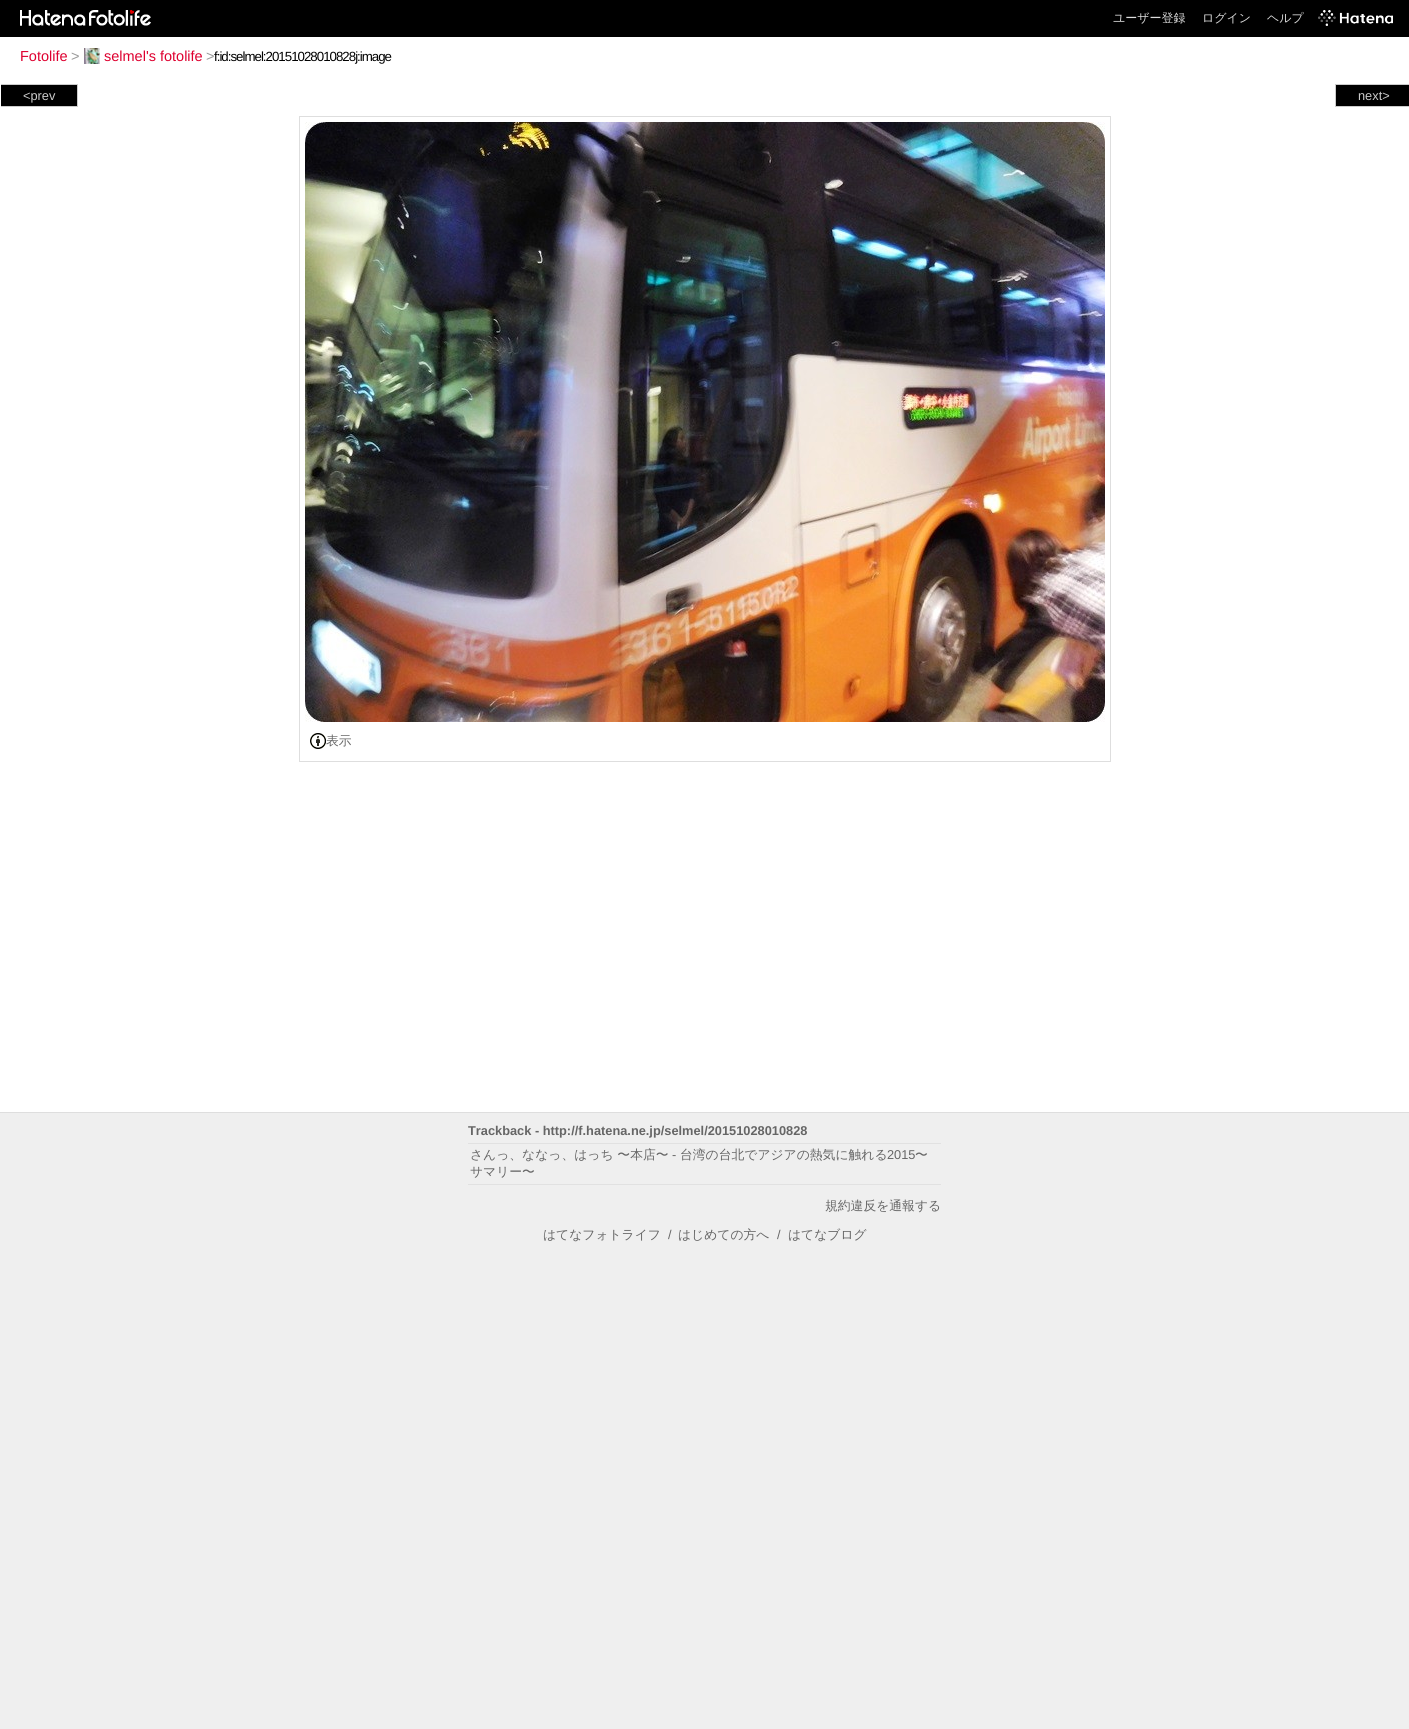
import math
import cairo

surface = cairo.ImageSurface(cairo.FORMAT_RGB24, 1409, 1729)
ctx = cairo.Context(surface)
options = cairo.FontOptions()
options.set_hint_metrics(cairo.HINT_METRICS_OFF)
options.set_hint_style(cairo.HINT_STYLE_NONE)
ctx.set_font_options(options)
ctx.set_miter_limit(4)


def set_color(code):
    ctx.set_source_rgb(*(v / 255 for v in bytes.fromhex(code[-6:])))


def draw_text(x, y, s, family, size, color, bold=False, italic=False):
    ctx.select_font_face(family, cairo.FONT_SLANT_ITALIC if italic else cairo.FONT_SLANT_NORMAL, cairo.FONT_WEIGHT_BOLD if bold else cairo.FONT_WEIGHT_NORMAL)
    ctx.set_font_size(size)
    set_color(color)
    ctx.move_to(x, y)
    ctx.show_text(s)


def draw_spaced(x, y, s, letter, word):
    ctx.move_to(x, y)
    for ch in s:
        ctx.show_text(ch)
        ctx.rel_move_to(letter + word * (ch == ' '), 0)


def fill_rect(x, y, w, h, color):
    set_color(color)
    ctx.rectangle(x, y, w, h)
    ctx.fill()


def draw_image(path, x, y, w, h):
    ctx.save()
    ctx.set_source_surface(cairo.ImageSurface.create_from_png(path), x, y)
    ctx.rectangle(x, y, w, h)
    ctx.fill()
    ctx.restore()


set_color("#efefef")
ctx.paint()
fill_rect(0, 0, 1409, 37, "#000000")
draw_image("assets/img1.png", 20, 10, 66, 16)
draw_image("assets/img2.png", 89, 10, 62, 16)
draw_text(1113, 22, "ユーザー登録", "WenQuanYi Zen Hei Medium", 12, "#dddddd")
draw_text(1202, 22, "ログイン", "WenQuanYi Zen Hei Medium", 12, "#dddddd")
draw_text(1267, 22, "ヘルプ", "WenQuanYi Zen Hei Medium", 12, "#dddddd")
draw_image("assets/img3.png", 1318, 10, 75, 16)
fill_rect(0, 37, 1409, 1075, "#ffffff")
draw_text(20, 61, "Fotolife", "Liberation Sans", 14.5, "#de002f")
draw_text(71, 61, ">", "Liberation Sans", 14.5, "#999999")
draw_image("assets/img4.png", 84, 48, 16, 16)
draw_text(104, 61, "selmel's fotolife", "Liberation Sans", 14.5, "#de002f")
draw_text(206, 61, ">", "Liberation Sans", 14.5, "#999999")
ctx.set_font_size(13.3)
set_color("#000000")
draw_spaced(214, 61, "f:id:selmel:20151028010828j:image", -1, 0)
fill_rect(0, 1112, 1409, 1, "#dedede")
fill_rect(1, 85, 76, 21, "#000000")
fill_rect(1, 84, 77, 1, "#cccccc")
fill_rect(77, 84, 1, 23, "#cccccc")
fill_rect(1, 106, 77, 1, "#cccccc")
draw_text(23, 100, "<prev", "Liberation Sans", 12.8, "#cccccc")
fill_rect(1336, 85, 73, 21, "#000000")
fill_rect(1335, 84, 74, 1, "#cccccc")
fill_rect(1335, 106, 74, 1, "#cccccc")
fill_rect(1335, 84, 1, 23, "#cccccc")
draw_text(1358, 100, "next>", "Liberation Sans", 12.8, "#cccccc")
ctx.rectangle(299.5, 116.5, 811, 645)
set_color("#dedede")
ctx.set_line_width(1)
ctx.stroke()
draw_image("assets/img5.png", 305, 122, 800, 600)
draw_image("assets/img6.png", 310, 733, 16, 16)
draw_text(326, 745, "表示", "WenQuanYi Zen Hei Medium", 12.8, "#666666")
draw_text(468, 1135, "Trackback - http://f.hatena.ne.jp/selmel/20151028010828", "Liberation Sans", 12.8, "#666666", bold=True)
fill_rect(468, 1143, 473, 1, "#e1e1e1")
fill_rect(468, 1184, 473, 1, "#e1e1e1")
draw_text(470, 1159, "さんっ、ななっ、はっち 〜本店〜", "WenQuanYi Zen Hei Medium", 12.8, "#666666")
draw_text(672, 1159, "-", "Liberation Sans", 12.8, "#666666")
draw_text(680, 1159, "台湾の台北でアジアの熱気に触れる", "WenQuanYi Zen Hei Medium", 12.8, "#666666")
draw_text(887, 1159, "2015", "Liberation Sans", 12.8, "#666666")
draw_text(915, 1159, "〜", "WenQuanYi Zen Hei Medium", 12.8, "#666666")
draw_text(470, 1176, "サマリー〜", "WenQuanYi Zen Hei Medium", 12.8, "#666666")
draw_text(825, 1210, "規約違反を通報する", "WenQuanYi Zen Hei Medium", 12.8, "#666666")
draw_text(543, 1239, "はてなフォトライフ", "WenQuanYi Zen Hei Medium", 12.8, "#666666")
draw_text(668, 1239, "/", "Liberation Sans", 12.8, "#666666")
draw_text(678, 1239, "はじめての方へ", "WenQuanYi Zen Hei Medium", 12.8, "#666666")
draw_text(777, 1239, "/", "Liberation Sans", 12.8, "#666666")
draw_text(788, 1239, "はてなブログ", "WenQuanYi Zen Hei Medium", 12.8, "#666666")
surface.write_to_png("output.png")
